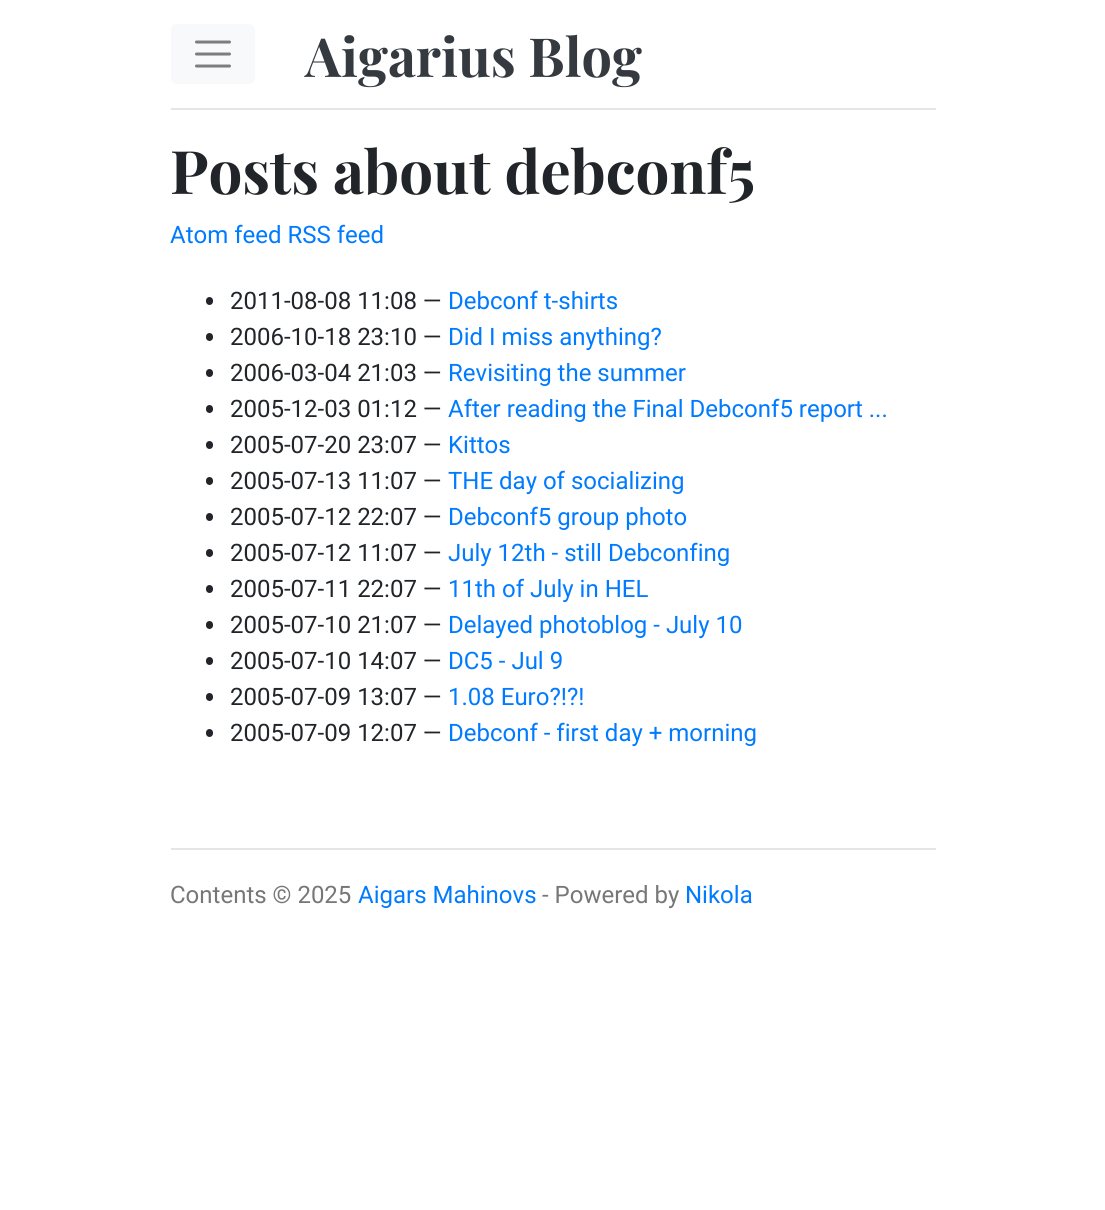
import math
import cairo

surface = cairo.ImageSurface(cairo.FORMAT_RGB24, 1105, 1210)
ctx = cairo.Context(surface)
options = cairo.FontOptions()
options.set_hint_metrics(cairo.HINT_METRICS_OFF)
options.set_hint_style(cairo.HINT_STYLE_NONE)
ctx.set_font_options(options)
ctx.set_miter_limit(4)


def set_color(code):
    ctx.set_source_rgb(*(v / 255 for v in bytes.fromhex(code[-6:])))


def draw_text(x, y, s, family, size, color, bold=False, italic=False):
    ctx.select_font_face(family, cairo.FONT_SLANT_ITALIC if italic else cairo.FONT_SLANT_NORMAL, cairo.FONT_WEIGHT_BOLD if bold else cairo.FONT_WEIGHT_NORMAL)
    ctx.set_font_size(size)
    set_color(color)
    ctx.move_to(x, y)
    ctx.show_text(s)


def fill_rect(x, y, w, h, color):
    set_color(color)
    ctx.rectangle(x, y, w, h)
    ctx.fill()


def rounded_rect(x, y, w, h, r):
    ctx.new_sub_path()
    for i, (u, v) in enumerate([(x + w - r, y + h - r), (x + r, y + h - r), (x + r, y + r), (x + w - r, y + r)]):
        ctx.arc(u, v, r, i * math.pi / 2, (i + 1) * math.pi / 2)
    ctx.close_path()


set_color("#ffffff")
ctx.paint()
fill_rect(171, 108, 765, 2, "#e5e5e5")
set_color("#f8f9fa")
rounded_rect(171, 24, 84, 60, 6)
ctx.fill()
ctx.new_path()
ctx.move_to(196.5, 42)
ctx.line_to(229.5, 42)
ctx.move_to(196.5, 54)
ctx.line_to(229.5, 54)
ctx.move_to(196.5, 66)
ctx.line_to(229.5, 66)
set_color("#7c7d7d")
ctx.set_line_width(3)
ctx.set_line_cap(cairo.LINE_CAP_ROUND)
ctx.stroke()
draw_text(305, 77, "Aigarius Blog", "Playfair Display", 54, "#343a40", bold=True)
draw_text(170, 194, "Posts about debconf5", "Playfair Display", 60, "#212529", bold=True)
draw_text(170, 243, "Atom feed RSS feed", "Roboto", 24, "#007bff")
set_color("#212529")
rounded_rect(206, 297, 7, 8, 3.5)
ctx.fill()
draw_text(230, 309, "2011-08-08 11:08 —", "Roboto", 24, "#212529")
draw_text(448, 309, "Debconf t-shirts", "Roboto", 24, "#007bff")
set_color("#212529")
rounded_rect(206, 333, 7, 8, 3.5)
ctx.fill()
draw_text(230, 345, "2006-10-18 23:10 —", "Roboto", 24, "#212529")
draw_text(448, 345, "Did I miss anything?", "Roboto", 24, "#007bff")
set_color("#212529")
rounded_rect(206, 369, 7, 8, 3.5)
ctx.fill()
draw_text(230, 381, "2006-03-04 21:03 —", "Roboto", 24, "#212529")
draw_text(448, 381, "Revisiting the summer", "Roboto", 24, "#007bff")
set_color("#212529")
rounded_rect(206, 405, 7, 8, 3.5)
ctx.fill()
draw_text(230, 417, "2005-12-03 01:12 —", "Roboto", 24, "#212529")
draw_text(448, 417, "After reading the Final Debconf5 report ...", "Roboto", 24, "#007bff")
set_color("#212529")
rounded_rect(206, 441, 7, 8, 3.5)
ctx.fill()
draw_text(230, 453, "2005-07-20 23:07 —", "Roboto", 24, "#212529")
draw_text(448, 453, "Kittos", "Roboto", 24, "#007bff")
set_color("#212529")
rounded_rect(206, 477, 7, 8, 3.5)
ctx.fill()
draw_text(230, 489, "2005-07-13 11:07 —", "Roboto", 24, "#212529")
draw_text(448, 489, "THE day of socializing", "Roboto", 24, "#007bff")
set_color("#212529")
rounded_rect(206, 513, 7, 8, 3.5)
ctx.fill()
draw_text(230, 525, "2005-07-12 22:07 —", "Roboto", 24, "#212529")
draw_text(448, 525, "Debconf5 group photo", "Roboto", 24, "#007bff")
set_color("#212529")
rounded_rect(206, 549, 7, 8, 3.5)
ctx.fill()
draw_text(230, 561, "2005-07-12 11:07 —", "Roboto", 24, "#212529")
draw_text(448, 561, "July 12th - still Debconfing", "Roboto", 24, "#007bff")
set_color("#212529")
rounded_rect(206, 585, 7, 8, 3.5)
ctx.fill()
draw_text(230, 597, "2005-07-11 22:07 —", "Roboto", 24, "#212529")
draw_text(448, 597, "11th of July in HEL", "Roboto", 24, "#007bff")
set_color("#212529")
rounded_rect(206, 621, 7, 8, 3.5)
ctx.fill()
draw_text(230, 633, "2005-07-10 21:07 —", "Roboto", 24, "#212529")
draw_text(448, 633, "Delayed photoblog - July 10", "Roboto", 24, "#007bff")
set_color("#212529")
rounded_rect(206, 657, 7, 8, 3.5)
ctx.fill()
draw_text(230, 669, "2005-07-10 14:07 —", "Roboto", 24, "#212529")
draw_text(448, 669, "DC5 - Jul 9", "Roboto", 24, "#007bff")
set_color("#212529")
rounded_rect(206, 693, 7, 8, 3.5)
ctx.fill()
draw_text(230, 705, "2005-07-09 13:07 —", "Roboto", 24, "#212529")
draw_text(448, 705, "1.08 Euro?!?!", "Roboto", 24, "#007bff")
set_color("#212529")
rounded_rect(206, 729, 7, 8, 3.5)
ctx.fill()
draw_text(230, 741, "2005-07-09 12:07 —", "Roboto", 24, "#212529")
draw_text(448, 741, "Debconf - first day + morning", "Roboto", 24, "#007bff")
fill_rect(171, 848, 765, 2, "#e5e5e5")
draw_text(170, 903, "Contents © 2025", "Roboto", 24, "#777777")
draw_text(358, 903, "Aigars Mahinovs", "Roboto", 24, "#007bff")
draw_text(542, 903, "- Powered by", "Roboto", 24, "#777777")
draw_text(685, 903, "Nikola", "Roboto", 24, "#007bff")
surface.write_to_png("output.png")
